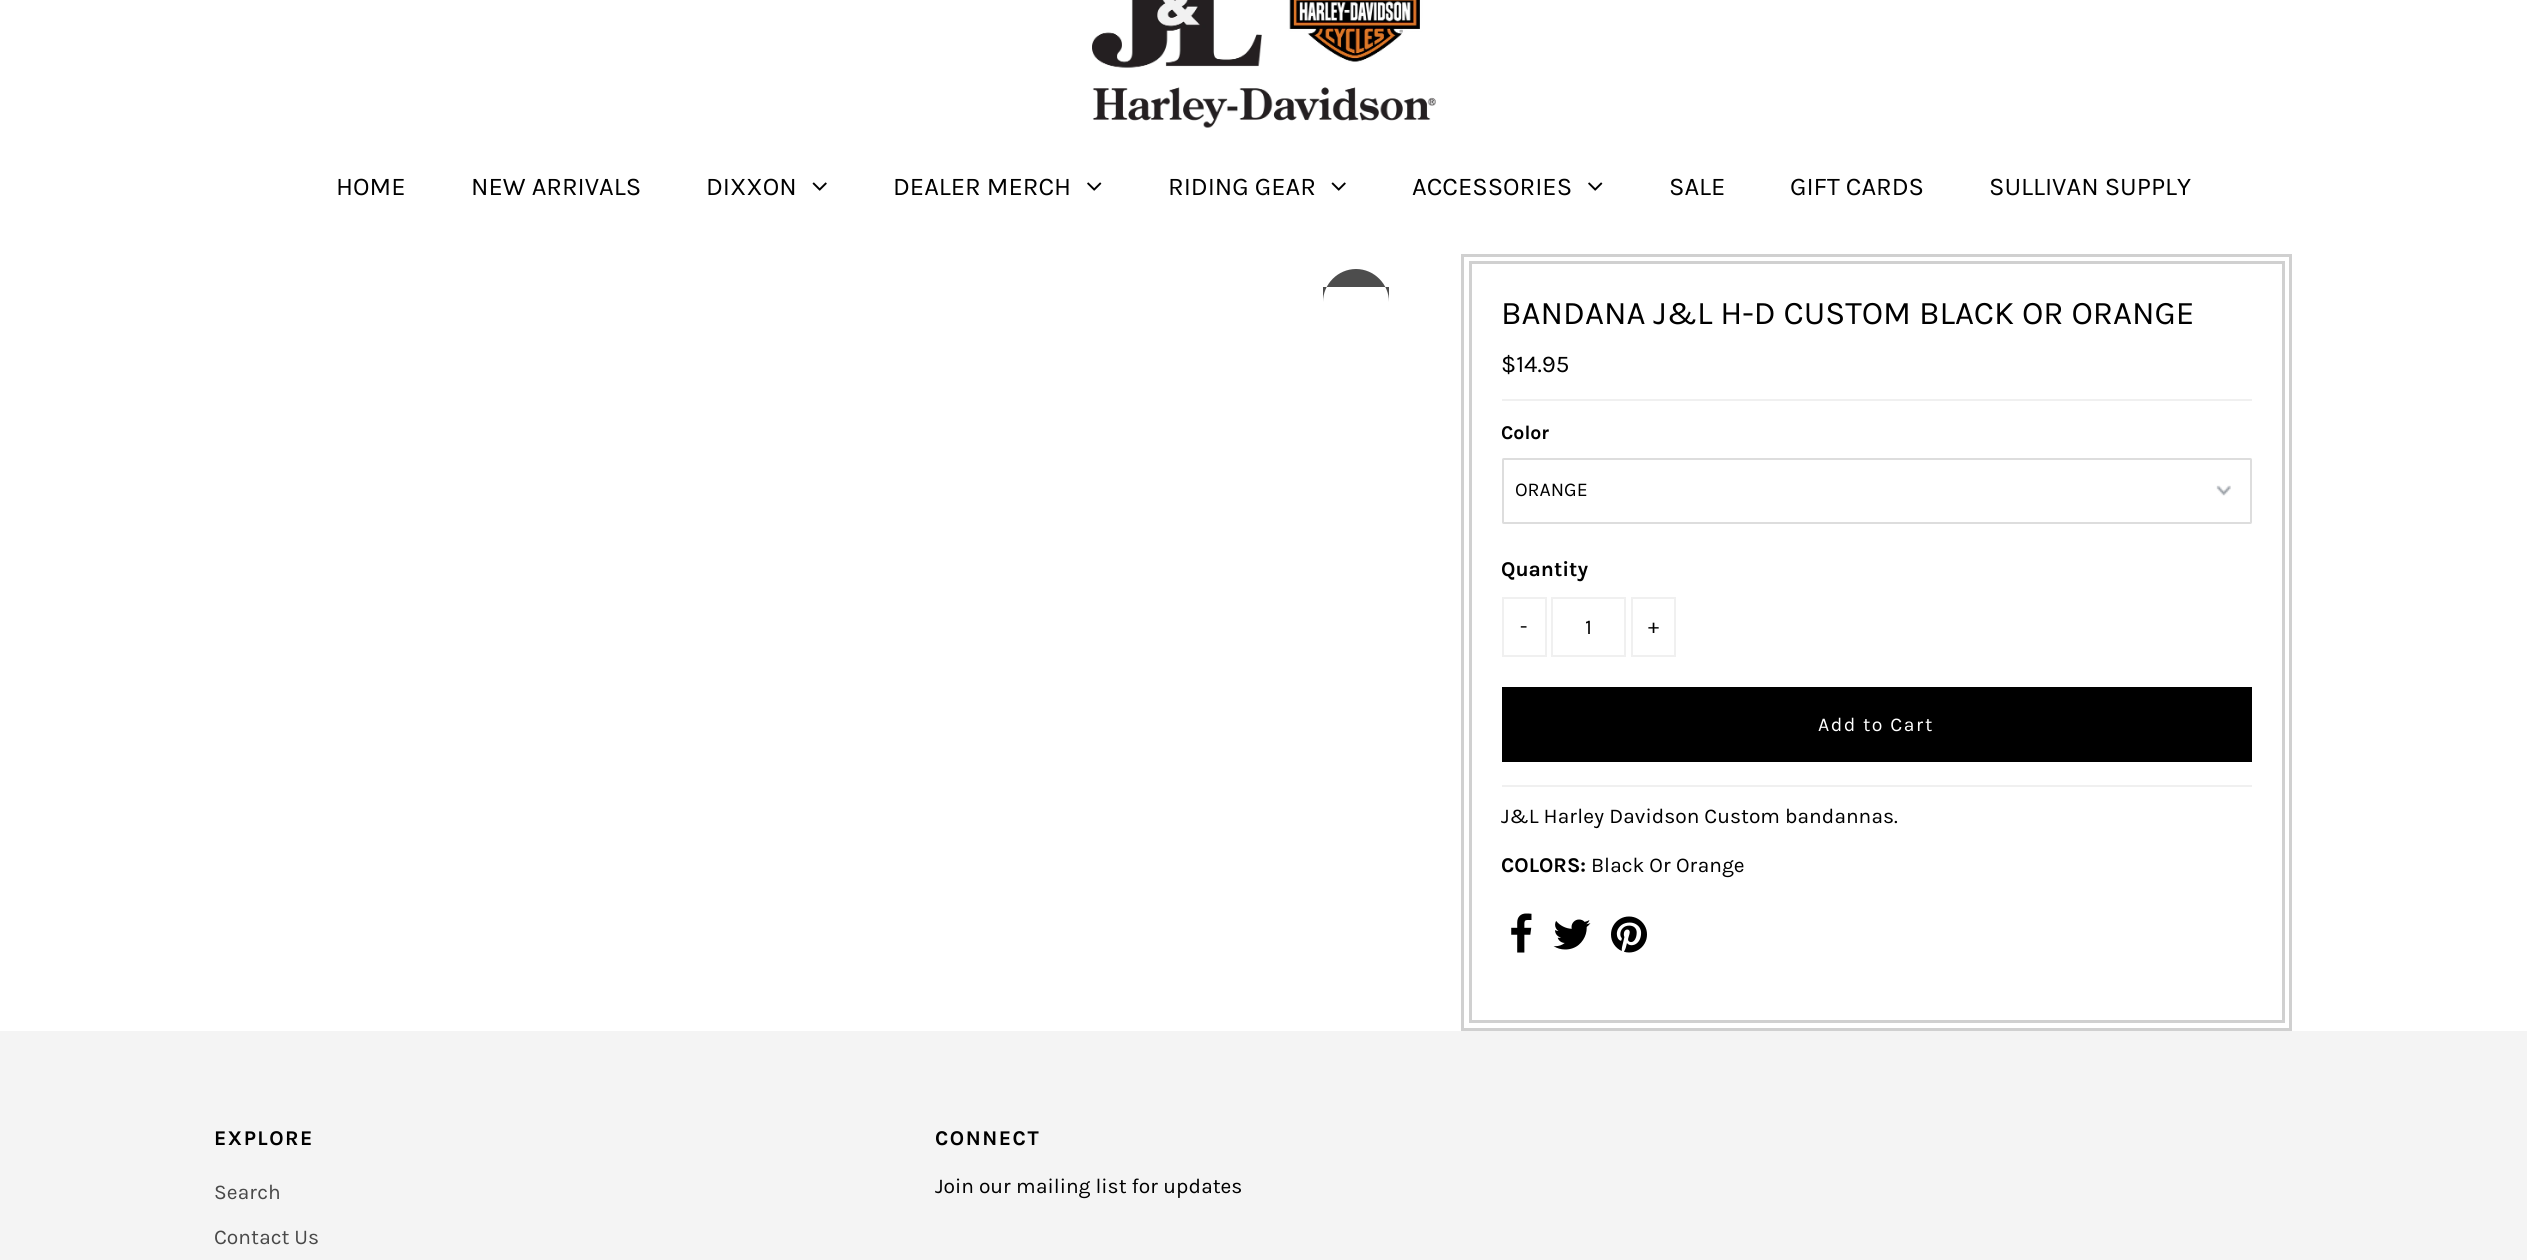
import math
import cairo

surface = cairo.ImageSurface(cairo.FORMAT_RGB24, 2527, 1260)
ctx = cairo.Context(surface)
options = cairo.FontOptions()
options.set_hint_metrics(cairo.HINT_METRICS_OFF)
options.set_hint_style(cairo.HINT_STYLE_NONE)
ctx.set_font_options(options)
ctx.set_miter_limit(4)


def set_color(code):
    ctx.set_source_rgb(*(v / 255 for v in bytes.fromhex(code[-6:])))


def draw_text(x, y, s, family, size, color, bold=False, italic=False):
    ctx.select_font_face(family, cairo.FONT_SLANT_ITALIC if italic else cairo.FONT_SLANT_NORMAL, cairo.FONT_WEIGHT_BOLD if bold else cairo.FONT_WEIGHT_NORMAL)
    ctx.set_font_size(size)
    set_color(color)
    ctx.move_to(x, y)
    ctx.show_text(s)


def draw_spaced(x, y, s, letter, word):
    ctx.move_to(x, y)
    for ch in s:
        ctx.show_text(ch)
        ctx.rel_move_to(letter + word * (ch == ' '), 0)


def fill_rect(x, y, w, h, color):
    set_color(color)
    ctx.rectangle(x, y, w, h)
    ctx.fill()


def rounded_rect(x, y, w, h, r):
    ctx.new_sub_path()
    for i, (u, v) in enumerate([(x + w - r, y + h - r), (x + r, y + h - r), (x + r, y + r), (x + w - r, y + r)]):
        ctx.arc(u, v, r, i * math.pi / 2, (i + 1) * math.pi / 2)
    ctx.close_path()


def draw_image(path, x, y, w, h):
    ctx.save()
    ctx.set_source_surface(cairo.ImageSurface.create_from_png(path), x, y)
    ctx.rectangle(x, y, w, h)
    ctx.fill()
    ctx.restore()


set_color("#ffffff")
ctx.paint()
draw_image("assets/img1.png", 1092, 0, 344, 128)
draw_text(336, 195, "HOME", "Karla", 25.5, "#000000")
draw_text(471, 195, "NEW ARRIVALS", "Karla", 25.5, "#000000")
draw_text(706, 195, "DIXXON", "Karla", 25.5, "#000000")
draw_image("assets/img2.png", 812, 182, 15, 9)
draw_text(893, 195, "DEALER MERCH", "Karla", 25.5, "#000000")
draw_image("assets/img3.png", 1087, 182, 15, 9)
draw_text(1168, 195, "RIDING GEAR", "Karla", 25.5, "#000000")
draw_image("assets/img2.png", 1331, 182, 15, 9)
draw_text(1412, 195, "ACCESSORIES", "Karla", 25.5, "#000000")
draw_image("assets/img3.png", 1588, 182, 15, 9)
draw_text(1669, 195, "SALE", "Karla", 25.5, "#000000")
draw_text(1790, 195, "GIFT CARDS", "Karla", 25.5, "#000000")
draw_text(1989, 195, "SULLIVAN SUPPLY", "Karla", 25.5, "#000000")
set_color("#4d4d4d")
ctx.new_path()
ctx.move_to(1356, 269)
ctx.curve_to(1374, 269, 1389, 284, 1389, 302)
ctx.line_to(1389, 287)
ctx.line_to(1323, 287)
ctx.line_to(1323, 302)
ctx.curve_to(1323, 284, 1338, 269, 1356, 269)
ctx.close_path()
ctx.fill()
ctx.rectangle(1462.5, 255.5, 828, 774)
set_color("#d0d0d0")
ctx.set_line_width(3)
ctx.stroke()
ctx.rectangle(1470.5, 262.5, 813, 759)
ctx.stroke()
draw_text(1501, 324, "BANDANA J&L H-D CUSTOM BLACK OR ORANGE", "Karla", 33, "#000000")
fill_rect(1502, 785, 750, 2, "#f0f0f0")
fill_rect(1502, 399, 750, 2, "#f0f0f0")
draw_text(1501, 372, "$14.95", "Karla", 24, "#000000")
draw_text(1501, 439, "Color", "Karla", 19.5, "#000000", bold=True)
draw_image("assets/img4.png", 2216, 485, 15, 11)
rounded_rect(1503, 459, 748, 64, 0.5)
set_color("#dddddd")
ctx.set_line_width(2)
ctx.stroke()
draw_text(1515, 496, "ORANGE", "Karla", 19.5, "#000000")
draw_text(1501, 576, "Quantity", "Karla", 21, "#000000", bold=True)
ctx.rectangle(1503, 598, 43, 58)
set_color("#f0f0f0")
ctx.stroke()
draw_text(1520, 633, "-", "Karla", 21, "#000000")
ctx.rectangle(1552, 598, 73, 58)
set_color("#f0f0f0")
ctx.stroke()
draw_text(1585, 634, "1", "Karla", 21, "#000000")
ctx.rectangle(1632, 598, 43, 58)
set_color("#f0f0f0")
ctx.stroke()
draw_text(1648, 633, "+", "Karla", 21, "#000000")
fill_rect(1502, 687, 750, 75, "#000000")
ctx.set_font_size(19.5)
set_color("#ffffff")
draw_spaced(1818, 731, "Add to Cart", 1.5, 0)
draw_text(1501, 823, "J&L Harley Davidson Custom bandannas.", "Karla", 21, "#000000")
draw_text(1501, 872, "COLORS:", "Karla", 21, "#000000", bold=True)
draw_text(1591, 872, "Black Or Orange", "Karla", 21, "#000000")
draw_image("assets/img5.png", 1511, 913, 21, 40)
draw_image("assets/img6.png", 1553, 919, 38, 31)
draw_image("assets/img7.png", 1611, 916, 36, 37)
fill_rect(0, 1031, 2527, 229, "#f4f4f4")
ctx.select_font_face("Karla", cairo.FONT_SLANT_NORMAL, cairo.FONT_WEIGHT_BOLD)
set_color("#000000")
draw_spaced(214, 1145, "EXPLORE", 1.5, 0)
draw_text(214, 1199, "Search", "Karla", 21, "#494949")
draw_text(214, 1244, "Contact Us", "Karla", 21, "#494949")
ctx.select_font_face("Karla", cairo.FONT_SLANT_NORMAL, cairo.FONT_WEIGHT_BOLD)
set_color("#000000")
draw_spaced(935, 1145, "CONNECT", 1.5, 0)
draw_text(935, 1193, "Join our mailing list for updates", "Karla", 21, "#000000")
surface.write_to_png("output.png")
